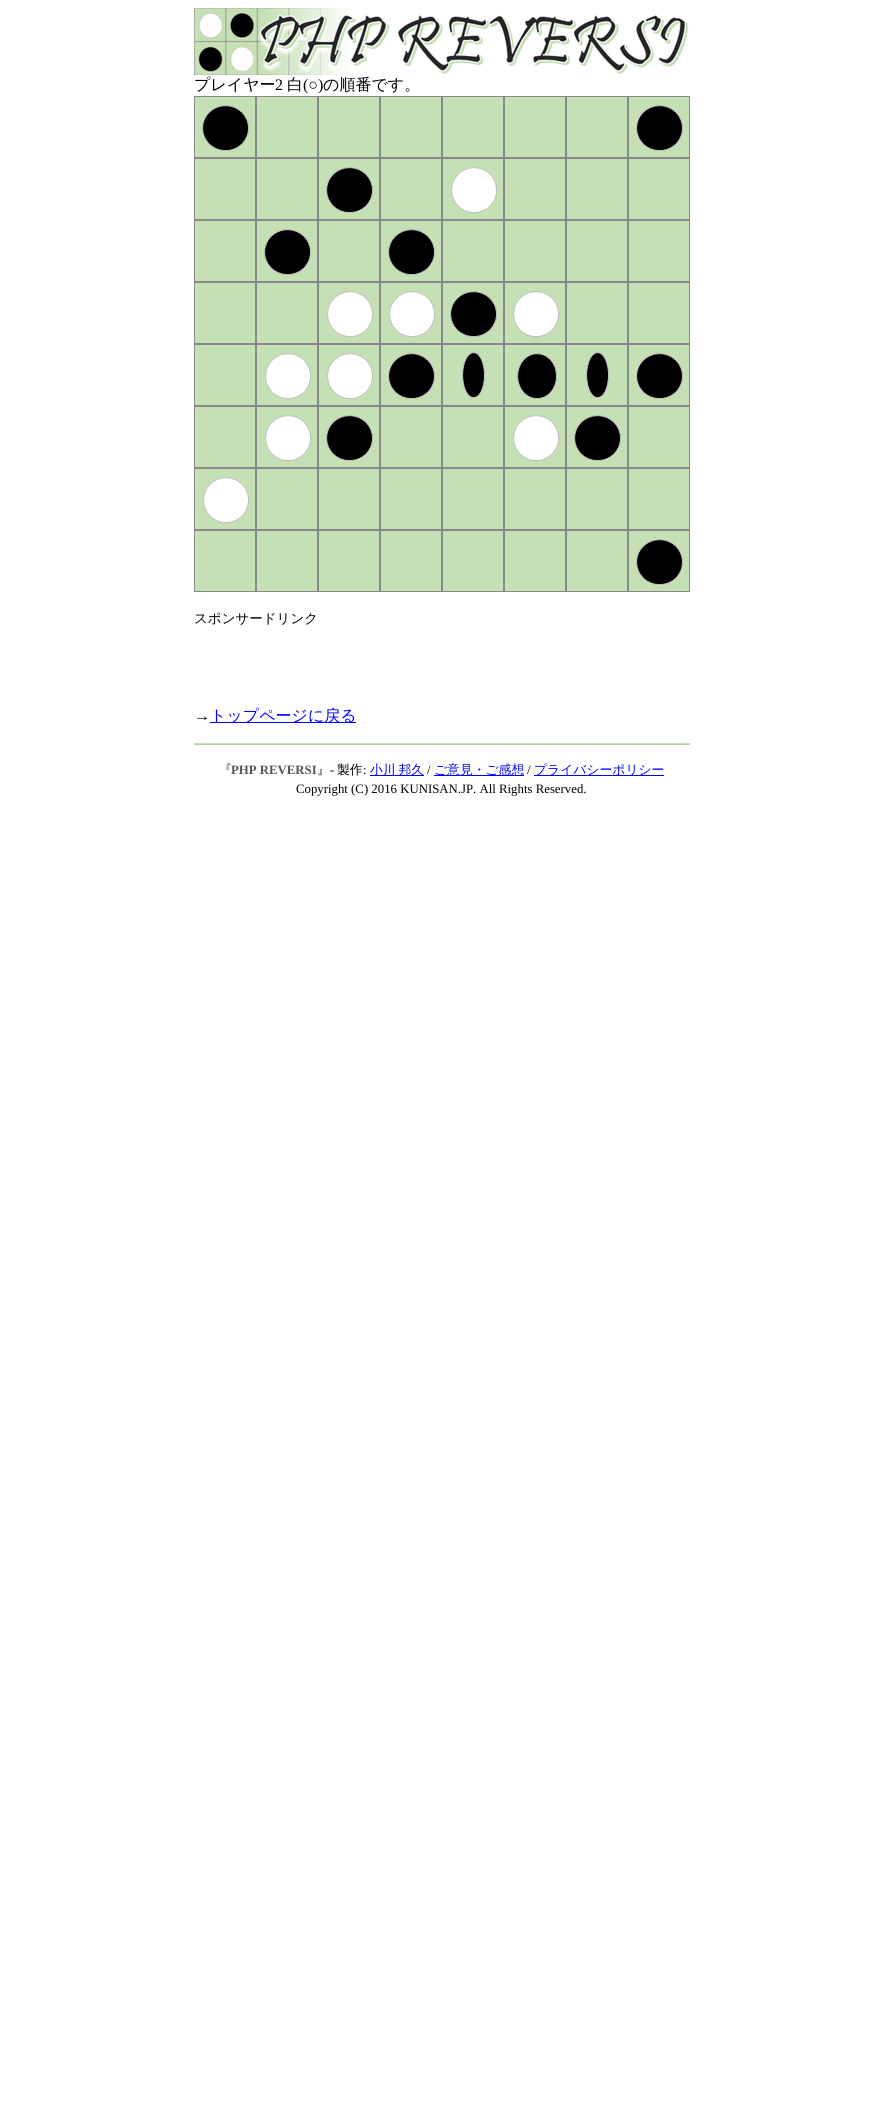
import math
import cairo

surface = cairo.ImageSurface(cairo.FORMAT_RGB24, 883, 2128)
ctx = cairo.Context(surface)
options = cairo.FontOptions()
options.set_hint_metrics(cairo.HINT_METRICS_OFF)
options.set_hint_style(cairo.HINT_STYLE_NONE)
ctx.set_font_options(options)
ctx.set_miter_limit(4)


def set_color(code):
    ctx.set_source_rgb(*(v / 255 for v in bytes.fromhex(code[-6:])))


def draw_text(x, y, s, family, size, color, bold=False, italic=False):
    ctx.select_font_face(family, cairo.FONT_SLANT_ITALIC if italic else cairo.FONT_SLANT_NORMAL, cairo.FONT_WEIGHT_BOLD if bold else cairo.FONT_WEIGHT_NORMAL)
    ctx.set_font_size(size)
    set_color(color)
    ctx.move_to(x, y)
    ctx.show_text(s)


def draw_spaced(x, y, s, letter, word):
    ctx.move_to(x, y)
    for ch in s:
        ctx.show_text(ch)
        ctx.rel_move_to(letter + word * (ch == ' '), 0)


def fill_rect(x, y, w, h, color):
    set_color(color)
    ctx.rectangle(x, y, w, h)
    ctx.fill()


def draw_image(path, x, y, w, h):
    ctx.save()
    ctx.set_source_surface(cairo.ImageSurface.create_from_png(path), x, y)
    ctx.rectangle(x, y, w, h)
    ctx.fill()
    ctx.restore()


set_color("#ffffff")
ctx.paint()
draw_image("assets/img1.png", 194, 8, 495, 67)
draw_text(194, 90, "プレイヤー", "WenQuanYi Zen Hei Medium", 16, "#000000")
draw_text(275, 90, "2", "Liberation Serif", 16, "#000000")
draw_text(287, 90, "白", "WenQuanYi Zen Hei Medium", 16, "#000000")
draw_text(303, 90, "(○)", "Liberation Serif", 16, "#000000")
draw_text(323, 90, "の順番です。", "WenQuanYi Zen Hei Medium", 16, "#000000")
ctx.rectangle(194.5, 96.5, 61, 61)
set_color("#888888")
ctx.set_line_width(1)
ctx.stroke()
ctx.rectangle(256.5, 96.5, 61, 61)
ctx.stroke()
ctx.rectangle(318.5, 96.5, 61, 61)
ctx.stroke()
ctx.rectangle(380.5, 96.5, 61, 61)
ctx.stroke()
ctx.rectangle(442.5, 96.5, 61, 61)
ctx.stroke()
ctx.rectangle(504.5, 96.5, 61, 61)
ctx.stroke()
ctx.rectangle(566.5, 96.5, 61, 61)
ctx.stroke()
ctx.rectangle(628.5, 96.5, 61, 61)
ctx.stroke()
draw_image("assets/img2.png", 195, 97, 60, 60)
fill_rect(257, 97, 60, 60, "#c5e0b4")
fill_rect(319, 97, 60, 60, "#c5e0b4")
fill_rect(381, 97, 60, 60, "#c5e0b4")
fill_rect(443, 97, 60, 60, "#c5e0b4")
fill_rect(505, 97, 60, 60, "#c5e0b4")
fill_rect(567, 97, 60, 60, "#c5e0b4")
draw_image("assets/img2.png", 629, 97, 60, 60)
ctx.rectangle(194.5, 158.5, 61, 61)
set_color("#888888")
ctx.stroke()
ctx.rectangle(256.5, 158.5, 61, 61)
ctx.stroke()
ctx.rectangle(318.5, 158.5, 61, 61)
ctx.stroke()
ctx.rectangle(380.5, 158.5, 61, 61)
ctx.stroke()
ctx.rectangle(442.5, 158.5, 61, 61)
ctx.stroke()
ctx.rectangle(504.5, 158.5, 61, 61)
ctx.stroke()
ctx.rectangle(566.5, 158.5, 61, 61)
ctx.stroke()
ctx.rectangle(628.5, 158.5, 61, 61)
ctx.stroke()
fill_rect(195, 159, 60, 60, "#c5e0b4")
fill_rect(257, 159, 60, 60, "#c5e0b4")
draw_image("assets/img2.png", 319, 159, 60, 60)
fill_rect(381, 159, 60, 60, "#c5e0b4")
draw_image("assets/img3.png", 443, 159, 60, 60)
fill_rect(505, 159, 60, 60, "#c5e0b4")
fill_rect(567, 159, 60, 60, "#c5e0b4")
fill_rect(629, 159, 60, 60, "#c5e0b4")
ctx.rectangle(194.5, 220.5, 61, 61)
set_color("#888888")
ctx.stroke()
ctx.rectangle(256.5, 220.5, 61, 61)
ctx.stroke()
ctx.rectangle(318.5, 220.5, 61, 61)
ctx.stroke()
ctx.rectangle(380.5, 220.5, 61, 61)
ctx.stroke()
ctx.rectangle(442.5, 220.5, 61, 61)
ctx.stroke()
ctx.rectangle(504.5, 220.5, 61, 61)
ctx.stroke()
ctx.rectangle(566.5, 220.5, 61, 61)
ctx.stroke()
ctx.rectangle(628.5, 220.5, 61, 61)
ctx.stroke()
fill_rect(195, 221, 60, 60, "#c5e0b4")
draw_image("assets/img2.png", 257, 221, 60, 60)
fill_rect(319, 221, 60, 60, "#c5e0b4")
draw_image("assets/img2.png", 381, 221, 60, 60)
fill_rect(443, 221, 60, 60, "#c5e0b4")
fill_rect(505, 221, 60, 60, "#c5e0b4")
fill_rect(567, 221, 60, 60, "#c5e0b4")
fill_rect(629, 221, 60, 60, "#c5e0b4")
ctx.rectangle(194.5, 282.5, 61, 61)
set_color("#888888")
ctx.stroke()
ctx.rectangle(256.5, 282.5, 61, 61)
ctx.stroke()
ctx.rectangle(318.5, 282.5, 61, 61)
ctx.stroke()
ctx.rectangle(380.5, 282.5, 61, 61)
ctx.stroke()
ctx.rectangle(442.5, 282.5, 61, 61)
ctx.stroke()
ctx.rectangle(504.5, 282.5, 61, 61)
ctx.stroke()
ctx.rectangle(566.5, 282.5, 61, 61)
ctx.stroke()
ctx.rectangle(628.5, 282.5, 61, 61)
ctx.stroke()
fill_rect(195, 283, 60, 60, "#c5e0b4")
fill_rect(257, 283, 60, 60, "#c5e0b4")
draw_image("assets/img3.png", 319, 283, 60, 60)
draw_image("assets/img3.png", 381, 283, 60, 60)
draw_image("assets/img2.png", 443, 283, 60, 60)
draw_image("assets/img3.png", 505, 283, 60, 60)
fill_rect(567, 283, 60, 60, "#c5e0b4")
fill_rect(629, 283, 60, 60, "#c5e0b4")
ctx.rectangle(194.5, 344.5, 61, 61)
set_color("#888888")
ctx.stroke()
ctx.rectangle(256.5, 344.5, 61, 61)
ctx.stroke()
ctx.rectangle(318.5, 344.5, 61, 61)
ctx.stroke()
ctx.rectangle(380.5, 344.5, 61, 61)
ctx.stroke()
ctx.rectangle(442.5, 344.5, 61, 61)
ctx.stroke()
ctx.rectangle(504.5, 344.5, 61, 61)
ctx.stroke()
ctx.rectangle(566.5, 344.5, 61, 61)
ctx.stroke()
ctx.rectangle(628.5, 344.5, 61, 61)
ctx.stroke()
fill_rect(195, 345, 60, 60, "#c5e0b4")
draw_image("assets/img3.png", 257, 345, 60, 60)
draw_image("assets/img3.png", 319, 345, 60, 60)
draw_image("assets/img2.png", 381, 345, 60, 60)
draw_image("assets/img4.png", 443, 345, 60, 60)
draw_image("assets/img5.png", 505, 345, 60, 60)
draw_image("assets/img4.png", 567, 345, 60, 60)
draw_image("assets/img6.png", 629, 345, 60, 60)
ctx.rectangle(194.5, 406.5, 61, 61)
set_color("#888888")
ctx.stroke()
ctx.rectangle(256.5, 406.5, 61, 61)
ctx.stroke()
ctx.rectangle(318.5, 406.5, 61, 61)
ctx.stroke()
ctx.rectangle(380.5, 406.5, 61, 61)
ctx.stroke()
ctx.rectangle(442.5, 406.5, 61, 61)
ctx.stroke()
ctx.rectangle(504.5, 406.5, 61, 61)
ctx.stroke()
ctx.rectangle(566.5, 406.5, 61, 61)
ctx.stroke()
ctx.rectangle(628.5, 406.5, 61, 61)
ctx.stroke()
fill_rect(195, 407, 60, 60, "#c5e0b4")
draw_image("assets/img3.png", 257, 407, 60, 60)
draw_image("assets/img2.png", 319, 407, 60, 60)
fill_rect(381, 407, 60, 60, "#c5e0b4")
fill_rect(443, 407, 60, 60, "#c5e0b4")
draw_image("assets/img3.png", 505, 407, 60, 60)
draw_image("assets/img2.png", 567, 407, 60, 60)
fill_rect(629, 407, 60, 60, "#c5e0b4")
ctx.rectangle(194.5, 468.5, 61, 61)
set_color("#888888")
ctx.stroke()
ctx.rectangle(256.5, 468.5, 61, 61)
ctx.stroke()
ctx.rectangle(318.5, 468.5, 61, 61)
ctx.stroke()
ctx.rectangle(380.5, 468.5, 61, 61)
ctx.stroke()
ctx.rectangle(442.5, 468.5, 61, 61)
ctx.stroke()
ctx.rectangle(504.5, 468.5, 61, 61)
ctx.stroke()
ctx.rectangle(566.5, 468.5, 61, 61)
ctx.stroke()
ctx.rectangle(628.5, 468.5, 61, 61)
ctx.stroke()
draw_image("assets/img3.png", 195, 469, 60, 60)
fill_rect(257, 469, 60, 60, "#c5e0b4")
fill_rect(319, 469, 60, 60, "#c5e0b4")
fill_rect(381, 469, 60, 60, "#c5e0b4")
fill_rect(443, 469, 60, 60, "#c5e0b4")
fill_rect(505, 469, 60, 60, "#c5e0b4")
fill_rect(567, 469, 60, 60, "#c5e0b4")
fill_rect(629, 469, 60, 60, "#c5e0b4")
ctx.rectangle(194.5, 530.5, 61, 61)
set_color("#888888")
ctx.stroke()
ctx.rectangle(256.5, 530.5, 61, 61)
ctx.stroke()
ctx.rectangle(318.5, 530.5, 61, 61)
ctx.stroke()
ctx.rectangle(380.5, 530.5, 61, 61)
ctx.stroke()
ctx.rectangle(442.5, 530.5, 61, 61)
ctx.stroke()
ctx.rectangle(504.5, 530.5, 61, 61)
ctx.stroke()
ctx.rectangle(566.5, 530.5, 61, 61)
ctx.stroke()
ctx.rectangle(628.5, 530.5, 61, 61)
ctx.stroke()
fill_rect(195, 531, 60, 60, "#c5e0b4")
fill_rect(257, 531, 60, 60, "#c5e0b4")
fill_rect(319, 531, 60, 60, "#c5e0b4")
fill_rect(381, 531, 60, 60, "#c5e0b4")
fill_rect(443, 531, 60, 60, "#c5e0b4")
fill_rect(505, 531, 60, 60, "#c5e0b4")
fill_rect(567, 531, 60, 60, "#c5e0b4")
draw_image("assets/img2.png", 629, 531, 60, 60)
draw_text(194, 623, "スポンサードリンク", "WenQuanYi Zen Hei Medium", 13.5, "#000000")
draw_text(194, 721, "→", "Liberation Serif", 16, "#000000")
fill_rect(210, 722, 146, 1, "#0000ff")
draw_text(210, 721, "トップページに戻る", "WenQuanYi Zen Hei Medium", 16, "#0000ff")
draw_image("assets/img7.png", 194, 743, 496, 2)
draw_text(219, 774, "『", "WenQuanYi Zen Hei Medium", 12.8, "#000000")
draw_text(231, 774, "PHP REVERSI", "Liberation Serif", 12.8, "#555555", bold=True)
draw_text(317, 774, "』", "WenQuanYi Zen Hei Medium", 12.8, "#000000")
draw_text(330, 774, "-", "Liberation Serif", 12.8, "#000000")
draw_text(337, 774, "製作", "WenQuanYi Zen Hei Medium", 12.8, "#000000")
draw_text(363, 774, ":", "Liberation Serif", 12.8, "#000000")
fill_rect(370, 775, 54, 1, "#0000ff")
ctx.select_font_face("WenQuanYi Zen Hei Medium")
draw_spaced(370, 774, "小川 邦久", 0, -1)
draw_text(427, 774, "/", "Liberation Serif", 12.8, "#000000")
fill_rect(434, 775, 90, 1, "#0000ff")
draw_text(434, 774, "ご意見・ご感想", "WenQuanYi Zen Hei Medium", 12.8, "#0000ff")
draw_text(527, 774, "/", "Liberation Serif", 12.8, "#000000")
fill_rect(534, 775, 130, 1, "#0000ff")
draw_text(534, 774, "プライバシーポリシー", "WenQuanYi Zen Hei Medium", 12.8, "#0000ff")
draw_text(296, 793, "Copyright (C) 2016 KUNISAN.JP. All Rights Reserved.", "Liberation Serif", 12.8, "#000000")
surface.write_to_png("output.png")
